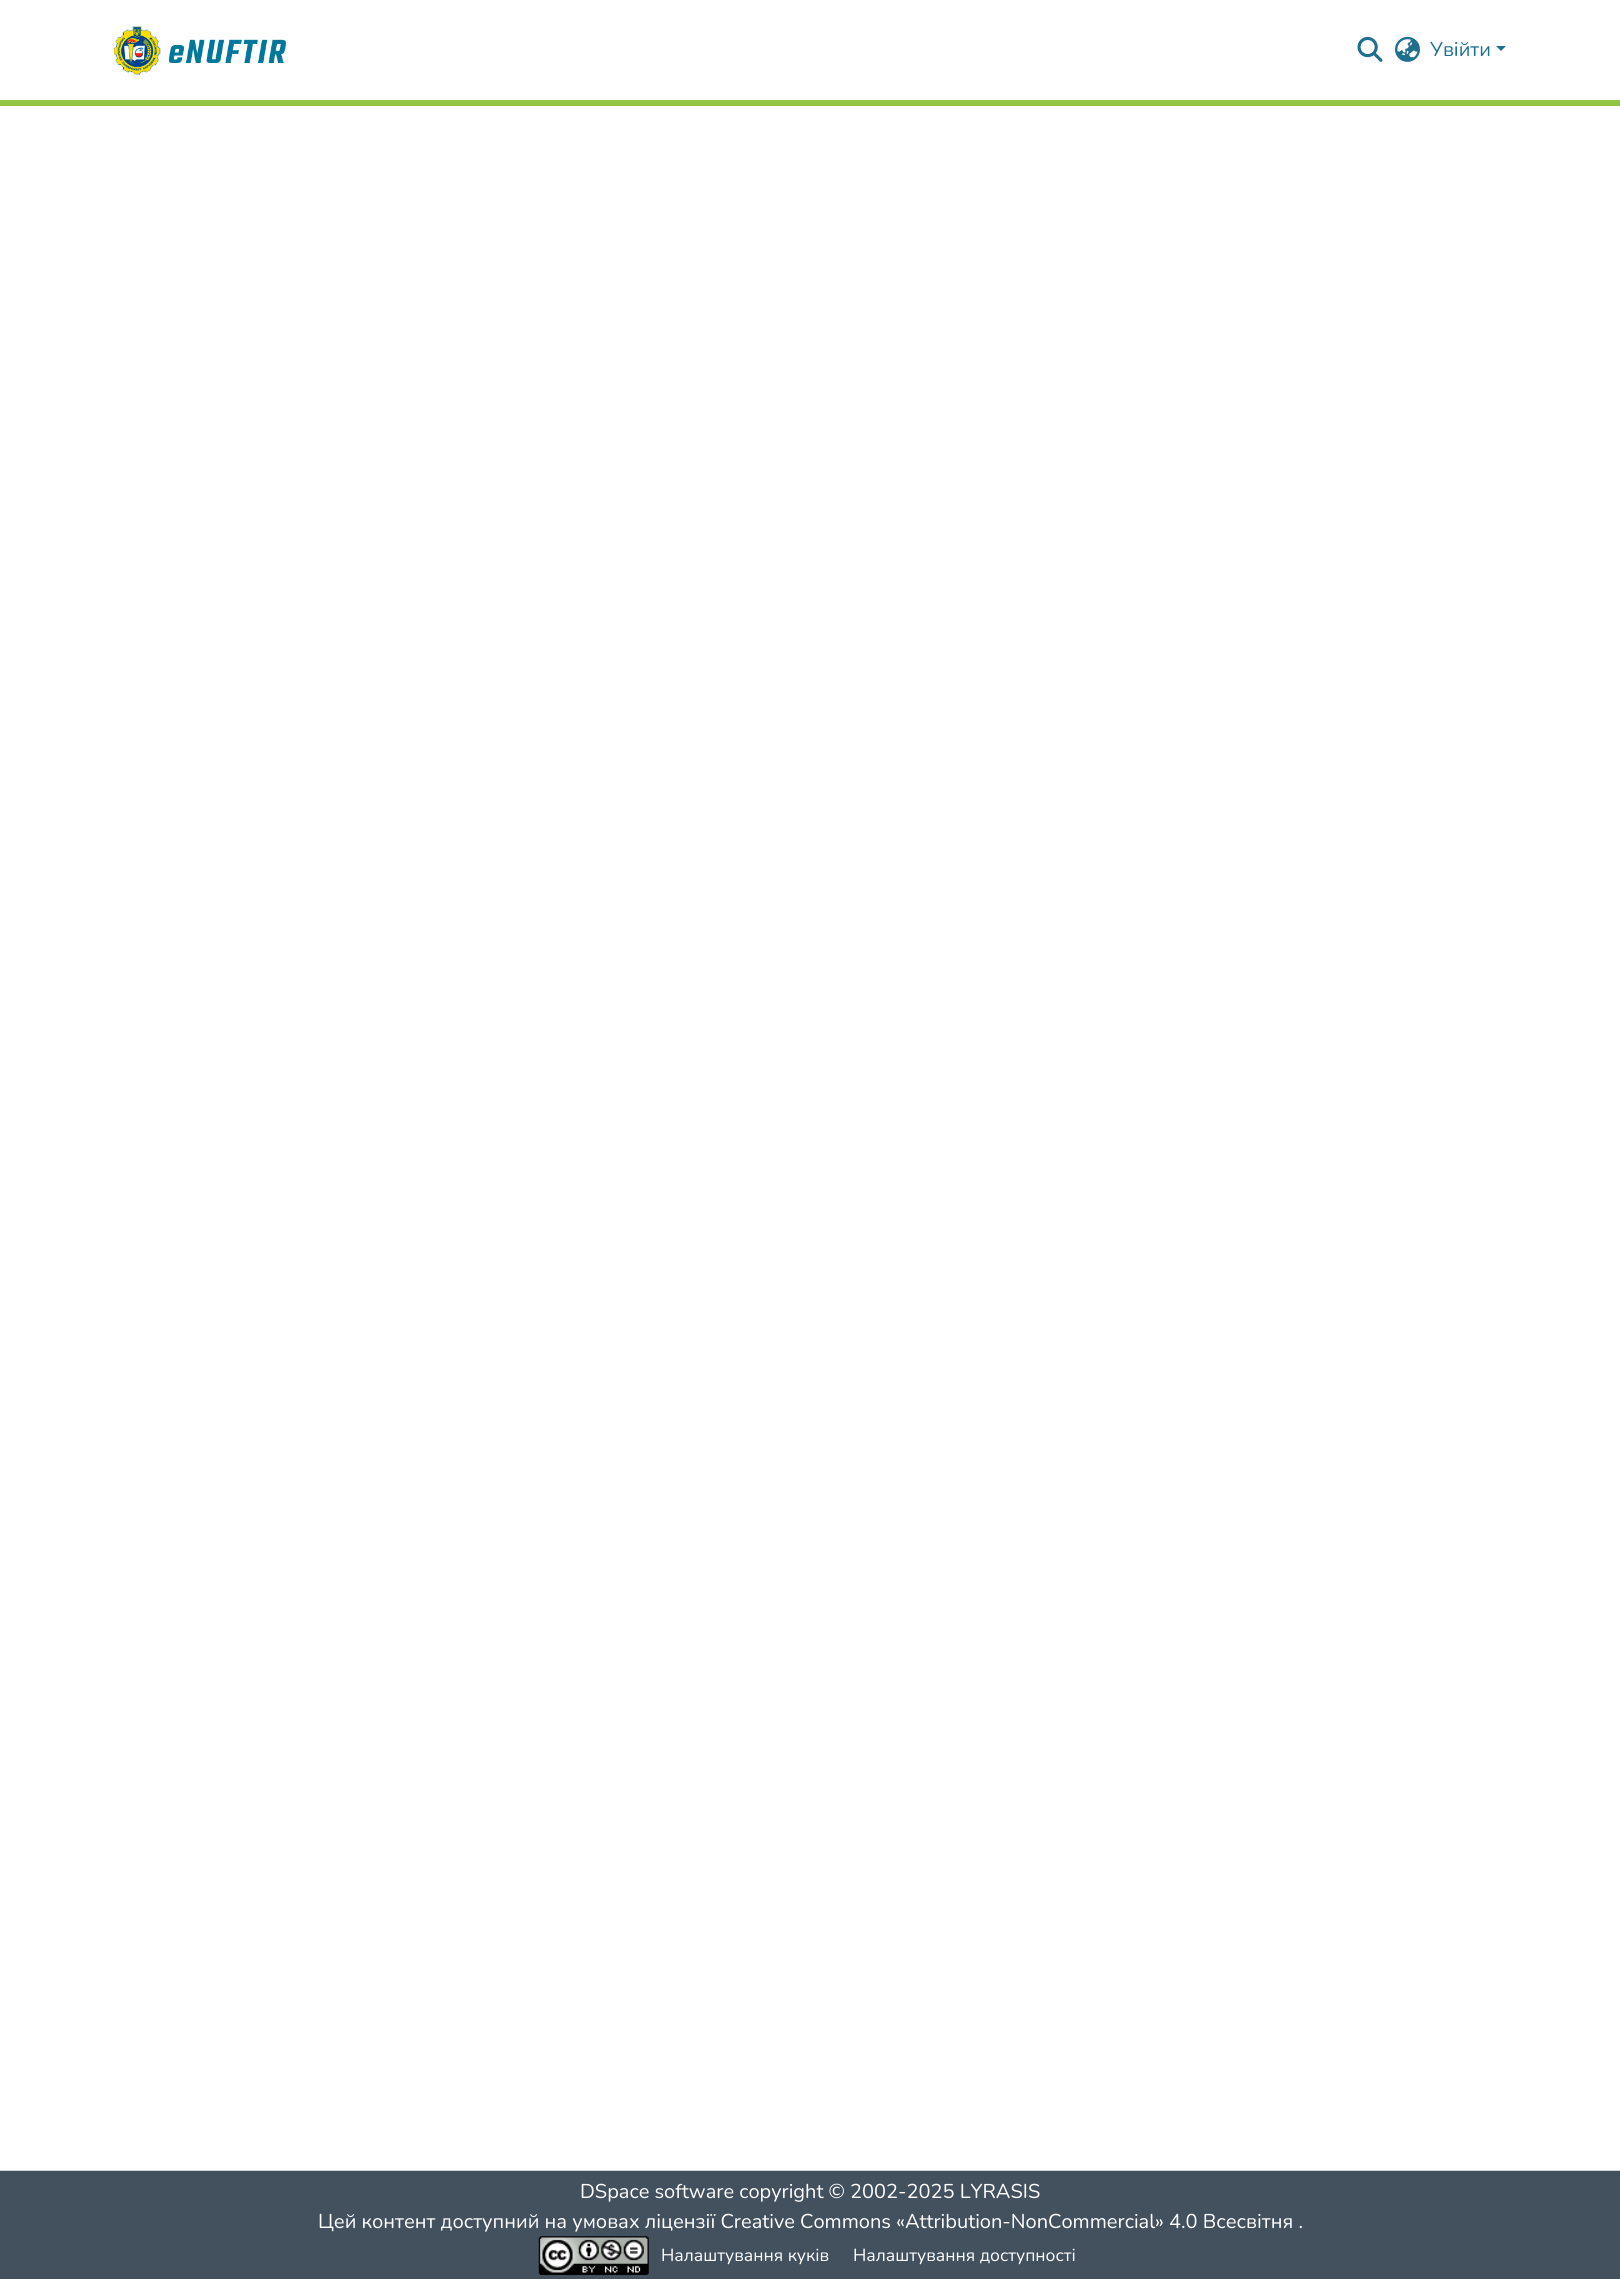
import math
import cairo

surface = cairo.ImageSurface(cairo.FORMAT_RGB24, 1620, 2279)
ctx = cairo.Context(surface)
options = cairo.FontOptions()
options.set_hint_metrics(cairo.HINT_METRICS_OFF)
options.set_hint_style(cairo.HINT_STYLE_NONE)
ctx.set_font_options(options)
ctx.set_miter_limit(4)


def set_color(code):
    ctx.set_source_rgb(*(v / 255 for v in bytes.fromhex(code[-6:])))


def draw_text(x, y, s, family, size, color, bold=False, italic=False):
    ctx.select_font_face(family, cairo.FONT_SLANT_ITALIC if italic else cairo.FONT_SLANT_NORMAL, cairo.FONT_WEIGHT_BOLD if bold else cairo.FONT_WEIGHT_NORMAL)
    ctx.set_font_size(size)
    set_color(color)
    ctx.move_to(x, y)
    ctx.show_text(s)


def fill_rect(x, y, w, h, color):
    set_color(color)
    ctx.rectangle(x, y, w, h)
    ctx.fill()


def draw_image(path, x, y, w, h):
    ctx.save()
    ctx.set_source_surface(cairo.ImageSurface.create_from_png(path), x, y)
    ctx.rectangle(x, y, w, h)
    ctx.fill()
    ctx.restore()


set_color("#ffffff")
ctx.paint()
fill_rect(0, 100, 1620, 6, "#92c642")
draw_image("assets/img1.png", 113, 26, 174, 49)
draw_image("assets/img2.png", 1357, 36, 26, 26)
draw_image("assets/img3.png", 1395, 36, 25, 26)
draw_text(1430, 56, "Увійти", "Nunito", 20, "#1e6f90")
ctx.new_path()
ctx.move_to(1496, 46)
ctx.line_to(1506, 46)
ctx.line_to(1501, 51)
ctx.close_path()
ctx.fill()
fill_rect(0, 2171, 1620, 108, "#43515f")
fill_rect(0, 2170, 1620, 1, "#ced4da")
draw_text(580, 2198, "DSpace software copyright © 2002-2025 LYRASIS", "Nunito", 20, "#ffffff")
draw_text(318, 2228, "Цей контент доступний на умовах ліцензії Creative Commons «Attribution-NonCommercial» 4.0 Всесвітня .", "Nunito", 20, "#ffffff")
draw_image("assets/img4.png", 538, 2236, 111, 39)
draw_text(661, 2261, "Налаштування куків", "Nunito", 17.5, "#ffffff")
fill_rect(841, 2241, 1, 29, "#495057")
draw_text(853, 2261, "Налаштування доступності", "Nunito", 17.5, "#ffffff")
surface.write_to_png("output.png")
